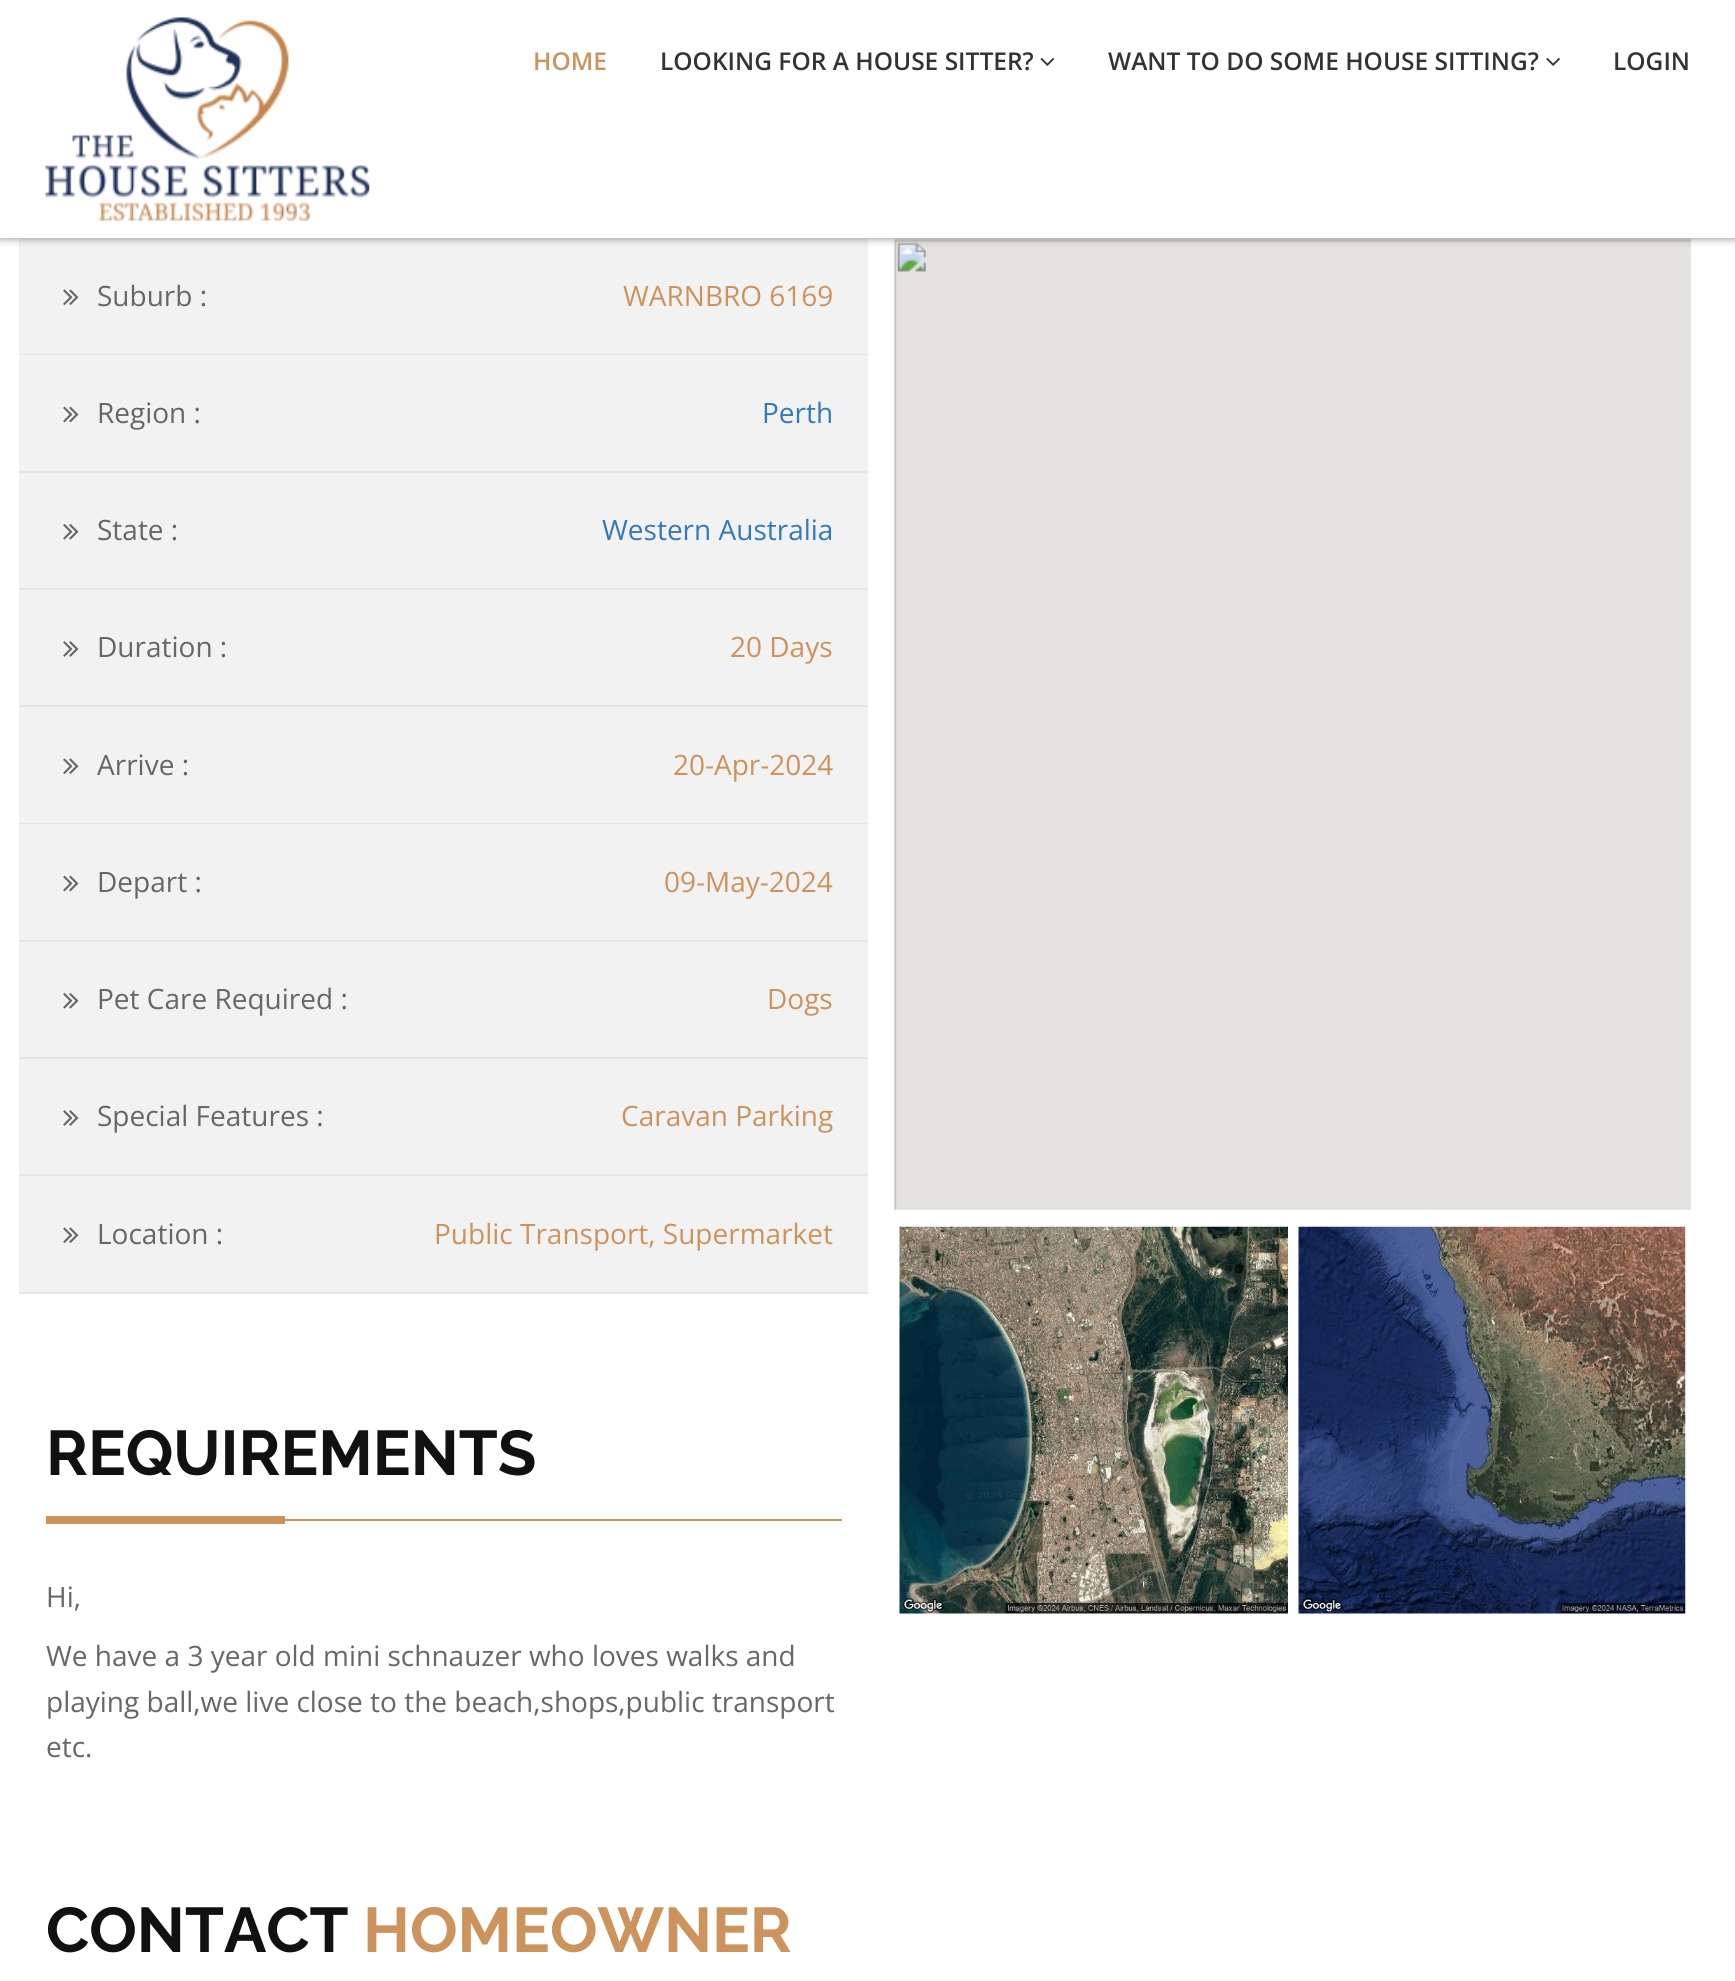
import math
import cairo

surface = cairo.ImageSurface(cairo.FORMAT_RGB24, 1735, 1981)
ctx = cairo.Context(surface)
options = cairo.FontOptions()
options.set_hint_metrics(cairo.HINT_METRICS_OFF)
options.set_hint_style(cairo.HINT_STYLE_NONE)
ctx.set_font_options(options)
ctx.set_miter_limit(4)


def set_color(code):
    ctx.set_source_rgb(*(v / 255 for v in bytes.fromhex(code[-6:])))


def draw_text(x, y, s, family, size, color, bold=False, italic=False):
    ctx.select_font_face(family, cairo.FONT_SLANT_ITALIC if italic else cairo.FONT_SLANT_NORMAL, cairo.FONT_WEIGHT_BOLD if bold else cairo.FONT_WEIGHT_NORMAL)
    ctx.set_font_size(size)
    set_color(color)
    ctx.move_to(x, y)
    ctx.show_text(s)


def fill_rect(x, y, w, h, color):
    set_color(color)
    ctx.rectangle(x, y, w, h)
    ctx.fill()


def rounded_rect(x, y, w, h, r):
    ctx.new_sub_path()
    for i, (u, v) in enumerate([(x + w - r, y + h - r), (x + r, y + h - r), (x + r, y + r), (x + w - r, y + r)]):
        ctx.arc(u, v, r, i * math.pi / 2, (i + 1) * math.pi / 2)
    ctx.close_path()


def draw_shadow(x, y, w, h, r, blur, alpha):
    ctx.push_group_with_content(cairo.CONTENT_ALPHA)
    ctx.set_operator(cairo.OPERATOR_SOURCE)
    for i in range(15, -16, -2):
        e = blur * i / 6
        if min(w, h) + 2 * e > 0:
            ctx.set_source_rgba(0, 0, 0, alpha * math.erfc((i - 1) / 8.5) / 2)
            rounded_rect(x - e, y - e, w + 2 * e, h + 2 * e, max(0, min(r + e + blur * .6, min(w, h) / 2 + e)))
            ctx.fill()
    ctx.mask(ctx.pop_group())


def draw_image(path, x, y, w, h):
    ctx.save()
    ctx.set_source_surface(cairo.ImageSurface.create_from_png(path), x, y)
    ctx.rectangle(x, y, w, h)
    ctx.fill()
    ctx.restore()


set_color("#ffffff")
ctx.paint()
fill_rect(19, 238, 849, 116, "#f2f2f2")
draw_image("assets/img8.png", 894, 238, 797, 972)
ctx.save()
ctx.rectangle(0, 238, 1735, 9)
ctx.clip()
set_color("#888888")
draw_shadow(0, 0, 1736, 238, 0, 4.5, 1)
ctx.restore()
draw_image("assets/img1.png", 45, 17, 325, 204)
draw_text(533, 70, "HOME", "Open Sans SemiBold", 24.5, "#cc935c")
draw_text(660, 70, "LOOKING FOR A HOUSE SITTER?", "Open Sans SemiBold", 24.5, "#333333")
draw_image("assets/img2.png", 1040, 58, 15, 8)
draw_text(1108, 70, "WANT TO DO SOME HOUSE SITTING?", "Open Sans SemiBold", 24.5, "#333333")
draw_image("assets/img3.png", 1546, 58, 14, 8)
draw_text(1613, 70, "LOGIN", "Open Sans SemiBold", 24.5, "#333333")
fill_rect(19, 354, 849, 1, "#e6e6e6")
draw_image("assets/img4.png", 63, 289, 16, 16)
draw_text(97, 306, "Suburb :", "Open Sans", 28, "#676767")
draw_text(623, 306, "WARNBRO 6169", "Open Sans", 28, "#cc935c")
fill_rect(19, 355, 849, 116, "#f2f2f2")
fill_rect(19, 471, 849, 2, "#e6e6e6")
draw_image("assets/img5.png", 63, 406, 16, 17)
draw_text(97, 423, "Region :", "Open Sans", 28, "#676767")
draw_text(762, 423, "Perth", "Open Sans", 28, "#337ab7")
fill_rect(19, 473, 849, 115, "#f2f2f2")
fill_rect(19, 588, 849, 2, "#e6e6e6")
draw_image("assets/img6.png", 63, 524, 16, 16)
draw_text(97, 540, "State :", "Open Sans", 28, "#676767")
draw_text(602, 540, "Western Australia", "Open Sans", 28, "#337ab7")
fill_rect(19, 590, 849, 115, "#f2f2f2")
fill_rect(19, 705, 849, 2, "#e6e6e6")
draw_image("assets/img7.png", 63, 641, 16, 16)
draw_text(97, 657, "Duration :", "Open Sans", 28, "#676767")
draw_text(730, 657, "20 Days", "Open Sans", 28, "#cc935c")
fill_rect(19, 707, 849, 116, "#f2f2f2")
fill_rect(19, 823, 849, 1, "#e6e6e6")
draw_image("assets/img4.png", 63, 758, 16, 16)
draw_text(97, 775, "Arrive :", "Open Sans", 28, "#676767")
draw_text(673, 775, "20-Apr-2024", "Open Sans", 28, "#cc935c")
fill_rect(19, 824, 849, 116, "#f2f2f2")
fill_rect(19, 940, 849, 2, "#e6e6e6")
draw_image("assets/img5.png", 63, 875, 16, 17)
draw_text(97, 892, "Depart :", "Open Sans", 28, "#676767")
draw_text(664, 892, "09-May-2024", "Open Sans", 28, "#cc935c")
fill_rect(19, 942, 849, 115, "#f2f2f2")
fill_rect(19, 1057, 849, 2, "#e6e6e6")
draw_image("assets/img6.png", 63, 993, 16, 16)
draw_text(97, 1009, "Pet Care Required :", "Open Sans", 28, "#676767")
draw_text(767, 1009, "Dogs", "Open Sans", 28, "#cc935c")
fill_rect(19, 1059, 849, 115, "#f2f2f2")
fill_rect(19, 1174, 849, 2, "#e6e6e6")
draw_image("assets/img7.png", 63, 1110, 16, 16)
draw_text(97, 1126, "Special Features :", "Open Sans", 28, "#676767")
draw_text(621, 1126, "Caravan Parking", "Open Sans", 28, "#cc935c")
fill_rect(19, 1176, 849, 116, "#f2f2f2")
fill_rect(19, 1292, 849, 2, "#e6e6e6")
draw_image("assets/img4.png", 63, 1227, 16, 16)
draw_text(97, 1244, "Location :", "Open Sans", 28, "#676767")
draw_text(434, 1244, "Public Transport, Supermarket", "Open Sans", 28, "#cc935c")
draw_text(46, 1475, "REQUIREMENTS", "Raleway", 63, "#111111", bold=True)
fill_rect(285, 1519, 557, 2, "#cc935c")
fill_rect(46, 1516, 239, 8, "#cc935c")
draw_text(46, 1607, "Hi,", "Open Sans", 28, "#676767")
draw_text(46, 1666, "We have a 3 year old mini schnauzer who loves walks and", "Open Sans", 28, "#676767")
draw_text(46, 1712, "playing ball,we live close to the beach,shops,public transport", "Open Sans", 28, "#676767")
draw_text(46, 1757, "etc.", "Open Sans", 28, "#676767")
draw_text(46, 1952, "CONTACT", "Raleway", 63, "#111111", bold=True)
draw_text(363, 1952, "HOMEOWNER", "Raleway", 63, "#cc935c", bold=True)
draw_image("assets/img9.png", 899, 1226, 389, 388)
draw_image("assets/img10.png", 1298, 1226, 388, 388)
surface.write_to_png("output.png")
